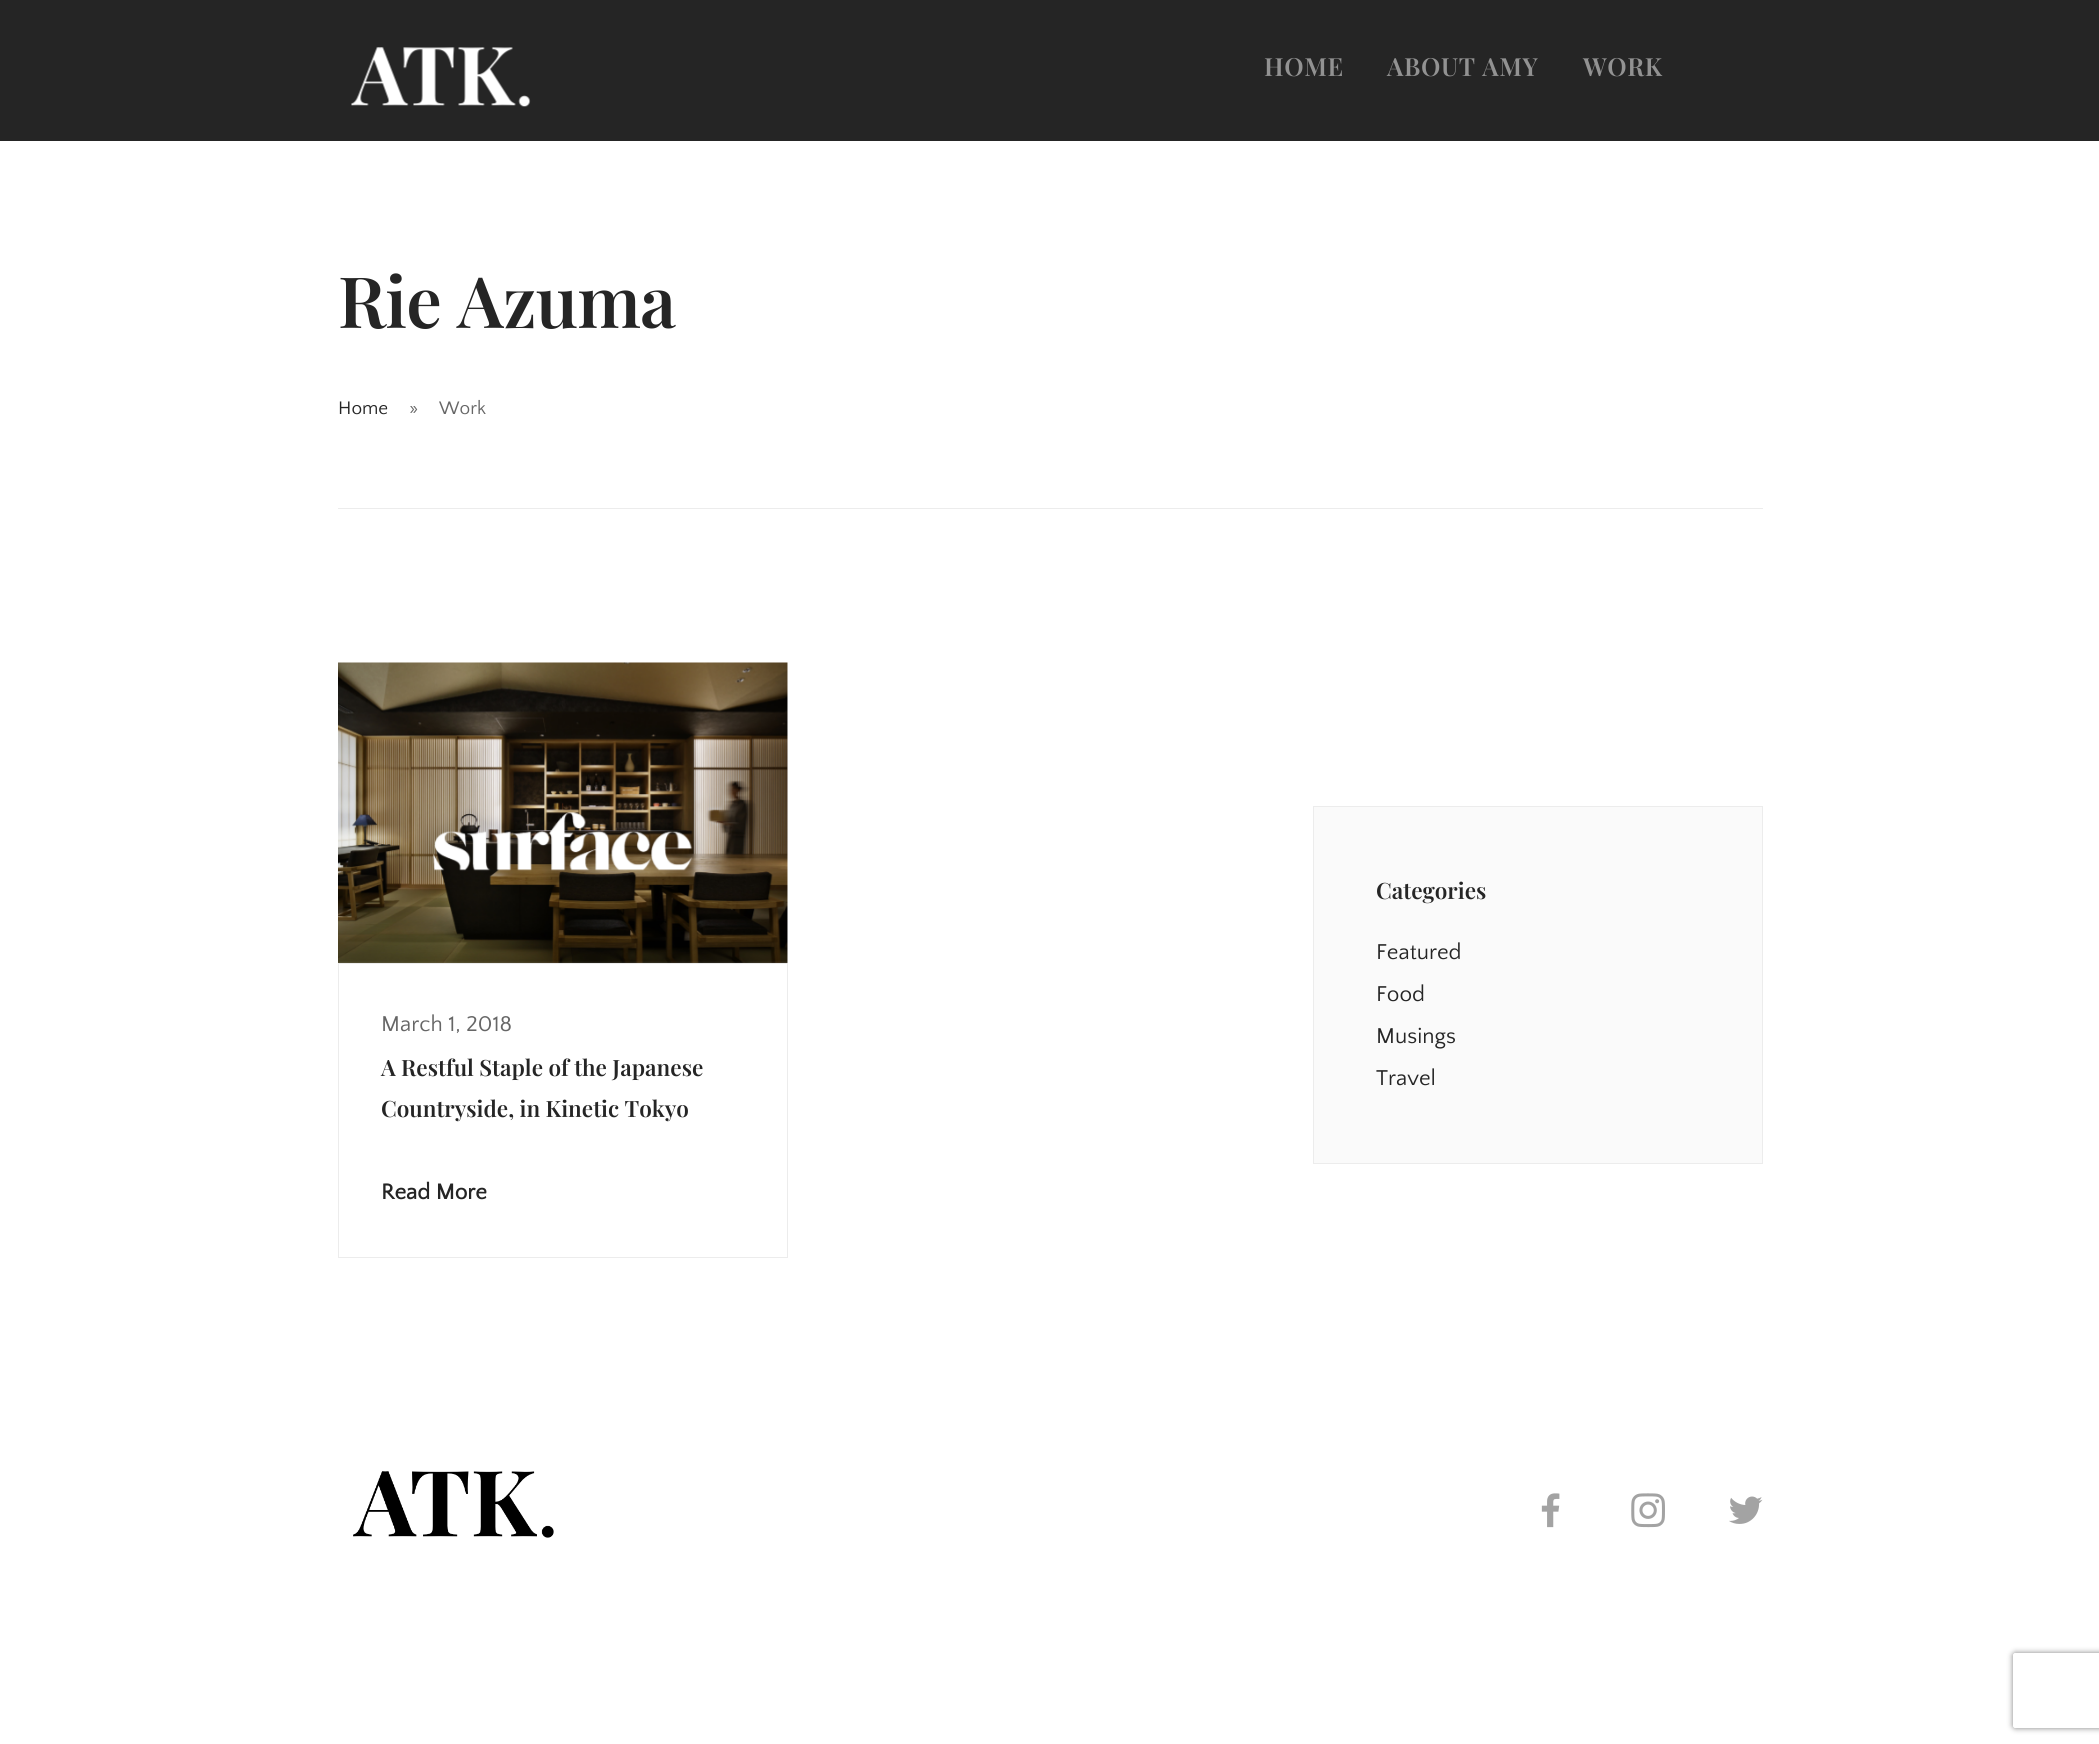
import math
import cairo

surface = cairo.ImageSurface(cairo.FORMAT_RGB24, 2099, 1744)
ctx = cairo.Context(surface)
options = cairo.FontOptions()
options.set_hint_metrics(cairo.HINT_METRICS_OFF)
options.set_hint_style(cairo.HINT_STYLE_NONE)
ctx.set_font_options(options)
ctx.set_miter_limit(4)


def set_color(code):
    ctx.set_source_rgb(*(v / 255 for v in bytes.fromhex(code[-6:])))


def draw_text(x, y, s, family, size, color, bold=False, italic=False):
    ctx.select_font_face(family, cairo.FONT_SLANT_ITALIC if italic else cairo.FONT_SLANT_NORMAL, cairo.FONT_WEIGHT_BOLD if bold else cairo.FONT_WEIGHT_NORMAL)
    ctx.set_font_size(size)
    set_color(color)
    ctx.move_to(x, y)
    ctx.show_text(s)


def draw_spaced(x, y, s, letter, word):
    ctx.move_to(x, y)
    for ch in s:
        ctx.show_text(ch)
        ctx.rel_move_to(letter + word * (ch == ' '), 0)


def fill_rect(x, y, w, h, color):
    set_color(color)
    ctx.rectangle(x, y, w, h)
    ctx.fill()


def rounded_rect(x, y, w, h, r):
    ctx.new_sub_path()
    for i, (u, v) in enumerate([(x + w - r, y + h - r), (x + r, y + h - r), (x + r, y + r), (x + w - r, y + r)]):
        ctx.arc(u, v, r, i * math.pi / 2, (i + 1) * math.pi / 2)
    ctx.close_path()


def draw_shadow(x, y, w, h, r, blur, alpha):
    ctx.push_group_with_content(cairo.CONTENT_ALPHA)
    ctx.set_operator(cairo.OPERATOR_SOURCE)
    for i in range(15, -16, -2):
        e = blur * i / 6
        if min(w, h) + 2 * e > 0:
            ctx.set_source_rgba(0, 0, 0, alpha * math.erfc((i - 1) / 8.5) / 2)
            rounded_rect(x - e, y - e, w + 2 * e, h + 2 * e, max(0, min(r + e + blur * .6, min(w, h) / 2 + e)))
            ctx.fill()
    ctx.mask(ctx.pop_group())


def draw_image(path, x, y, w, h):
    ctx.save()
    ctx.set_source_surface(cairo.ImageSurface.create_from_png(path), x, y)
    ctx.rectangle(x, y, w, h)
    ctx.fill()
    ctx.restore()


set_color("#ffffff")
ctx.paint()
fill_rect(0, 0, 2099, 141, "#252525")
draw_image("assets/img1.png", 351, 47, 180, 60)
ctx.select_font_face("Playfair Display SemiBold")
ctx.set_font_size(25)
set_color("#929292")
draw_spaced(1264, 76, "HOME", 0.6, 0)
draw_spaced(1387, 76, "ABOUT AMY", 0.6, 0)
draw_spaced(1583, 76, "WORK", 0.6, 0)
ctx.set_font_size(70.75)
set_color("#252525")
draw_spaced(338, 328, "Rie Azuma", -0.75, 0)
draw_text(338, 414, "Home", "Quattrocento Sans", 19, "#252525")
draw_text(409, 414, "»", "Quattrocento Sans", 19, "#666666")
draw_text(439, 414, "Work", "Quattrocento Sans", 19, "#666666")
fill_rect(338, 508, 1425, 1, "#ececec")
set_color("#fafafa")
ctx.rectangle(1313.5, 806.5, 449, 357)
ctx.fill_preserve()
set_color("#ececec")
ctx.set_line_width(1)
ctx.stroke()
draw_text(1376, 899, "Categories", "Playfair Display SemiBold", 22.5, "#252525")
draw_text(1376, 959, "Featured", "Quattrocento Sans", 22.5, "#252525")
draw_text(1376, 1001, "Food", "Quattrocento Sans", 22.5, "#252525")
draw_text(1376, 1043, "Musings", "Quattrocento Sans", 22.5, "#252525")
draw_text(1376, 1085, "Travel", "Quattrocento Sans", 22.5, "#252525")
draw_image("assets/img2.png", 338, 662, 450, 301)
ctx.rectangle(338.5, 963.5, 449, 294)
set_color("#ececec")
ctx.stroke()
draw_text(381, 1031, "March 1, 2018", "Quattrocento Sans", 22.5, "#666666")
draw_text(381, 1076, "A Restful Staple of the Japanese", "Playfair Display SemiBold", 22.5, "#252525")
draw_text(381, 1117, "Countryside, in Kinetic Tokyo", "Playfair Display SemiBold", 22.5, "#252525")
draw_text(381, 1199, "Read More", "Quattrocento Sans", 22.5, "#252525", bold=True)
draw_image("assets/img3.png", 353, 1471, 201, 67)
draw_image("assets/img4.png", 1541, 1493, 19, 35)
draw_image("assets/img5.png", 1631, 1493, 34, 35)
draw_image("assets/img6.png", 1729, 1496, 34, 28)
ctx.save()
ctx.set_fill_rule(cairo.FILL_RULE_EVEN_ODD)
ctx.new_path()
ctx.move_to(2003, 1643)
ctx.line_to(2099, 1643)
ctx.line_to(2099, 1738)
ctx.line_to(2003, 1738)
ctx.close_path()
ctx.move_to(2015.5, 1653)
ctx.line_to(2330.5, 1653)
ctx.curve_to(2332, 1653, 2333, 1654, 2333, 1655.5)
ctx.line_to(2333, 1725.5)
ctx.curve_to(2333, 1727, 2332, 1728, 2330.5, 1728)
ctx.line_to(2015.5, 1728)
ctx.curve_to(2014, 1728, 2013, 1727, 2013, 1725.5)
ctx.line_to(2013, 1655.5)
ctx.curve_to(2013, 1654, 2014, 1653, 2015.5, 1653)
ctx.close_path()
ctx.clip()
set_color("#808080")
draw_shadow(2013, 1653, 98, 75, 2.5, 3, 1)
ctx.restore()
surface.write_to_png("output.png")
